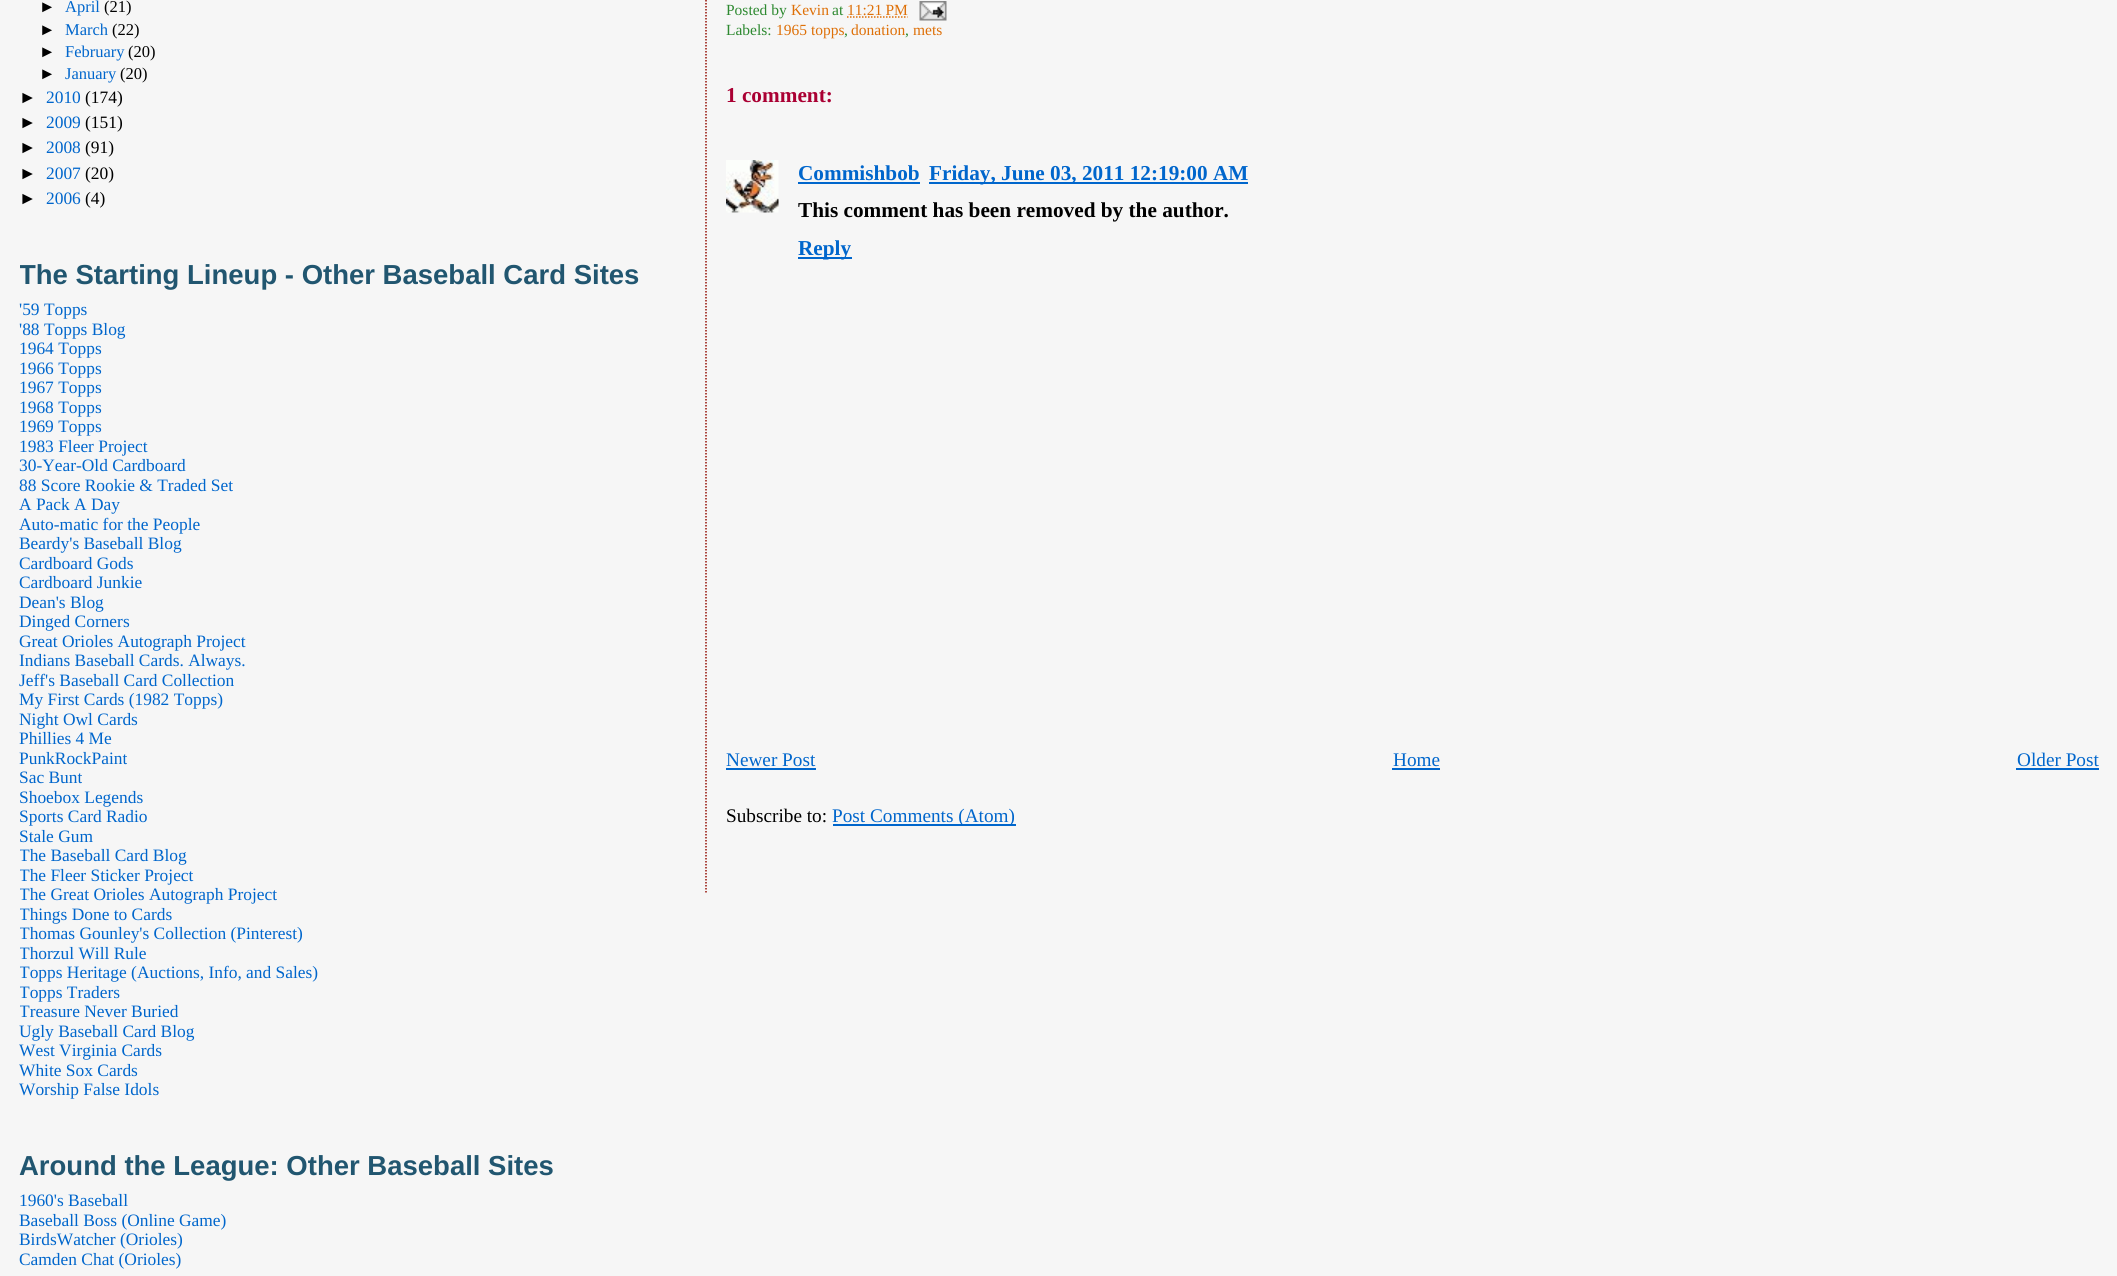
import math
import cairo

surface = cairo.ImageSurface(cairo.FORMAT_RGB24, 2117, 1276)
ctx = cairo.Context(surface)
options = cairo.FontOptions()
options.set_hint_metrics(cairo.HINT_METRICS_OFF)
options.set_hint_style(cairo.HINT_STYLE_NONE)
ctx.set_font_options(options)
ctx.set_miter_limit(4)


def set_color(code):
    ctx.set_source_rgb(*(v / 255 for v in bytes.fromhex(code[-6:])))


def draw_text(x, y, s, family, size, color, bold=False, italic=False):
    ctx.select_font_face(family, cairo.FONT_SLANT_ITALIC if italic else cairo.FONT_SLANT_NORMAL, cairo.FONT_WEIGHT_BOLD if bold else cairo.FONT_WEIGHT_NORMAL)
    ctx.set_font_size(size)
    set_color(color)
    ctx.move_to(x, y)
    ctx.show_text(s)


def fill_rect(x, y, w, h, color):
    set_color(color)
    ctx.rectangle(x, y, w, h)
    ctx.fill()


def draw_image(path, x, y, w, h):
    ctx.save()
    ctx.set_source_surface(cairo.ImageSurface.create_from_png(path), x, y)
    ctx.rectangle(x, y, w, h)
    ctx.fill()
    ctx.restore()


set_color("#f6f6f6")
ctx.paint()
draw_text(39, 12, "►", "Liberation Sans", 16.5, "#000000")
draw_text(65, 12, "April", "Liberation Serif", 16.5, "#0066cc")
draw_text(104, 12, "(21)", "Liberation Serif", 16.5, "#000000")
draw_text(39, 35, "►", "Liberation Sans", 16.5, "#000000")
draw_text(65, 35, "March", "Liberation Serif", 16.5, "#0066cc")
draw_text(112, 35, "(22)", "Liberation Serif", 16.5, "#000000")
draw_text(39, 57, "►", "Liberation Sans", 16.5, "#000000")
draw_text(65, 57, "February", "Liberation Serif", 16.5, "#0066cc")
draw_text(128, 57, "(20)", "Liberation Serif", 16.5, "#000000")
draw_text(39, 79, "►", "Liberation Sans", 16.5, "#000000")
draw_text(65, 79, "January", "Liberation Serif", 16.5, "#0066cc")
draw_text(120, 79, "(20)", "Liberation Serif", 16.5, "#000000")
draw_text(19, 103, "►", "Liberation Sans", 17.4, "#000000")
draw_text(46, 103, "2010", "Liberation Serif", 17.4, "#0066cc")
draw_text(85, 103, "(174)", "Liberation Serif", 17.4, "#000000")
draw_text(19, 128, "►", "Liberation Sans", 17.4, "#000000")
draw_text(46, 128, "2009", "Liberation Serif", 17.4, "#0066cc")
draw_text(85, 128, "(151)", "Liberation Serif", 17.4, "#000000")
draw_text(19, 153, "►", "Liberation Sans", 17.4, "#000000")
draw_text(46, 153, "2008", "Liberation Serif", 17.4, "#0066cc")
draw_text(85, 153, "(91)", "Liberation Serif", 17.4, "#000000")
draw_text(19, 179, "►", "Liberation Sans", 17.4, "#000000")
draw_text(46, 179, "2007", "Liberation Serif", 17.4, "#0066cc")
draw_text(85, 179, "(20)", "Liberation Serif", 17.4, "#000000")
draw_text(19, 204, "►", "Liberation Sans", 17.4, "#000000")
draw_text(46, 204, "2006", "Liberation Serif", 17.4, "#0066cc")
draw_text(85, 204, "(4)", "Liberation Serif", 17.4, "#000000")
ctx.save()
ctx.rectangle(20, 0, 645, 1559)
ctx.clip()
draw_text(19, 284, "The Starting Lineup - Other Baseball Card Sites", "Liberation Sans", 27.5, "#215670", bold=True)
ctx.restore()
draw_text(19, 315, "'59 Topps", "Liberation Serif", 17.4, "#0066cc")
draw_text(19, 335, "'88 Topps Blog", "Liberation Serif", 17.4, "#0066cc")
draw_text(19, 354, "1964 Topps", "Liberation Serif", 17.4, "#0066cc")
draw_text(19, 374, "1966 Topps", "Liberation Serif", 17.4, "#0066cc")
draw_text(19, 393, "1967 Topps", "Liberation Serif", 17.4, "#0066cc")
draw_text(19, 413, "1968 Topps", "Liberation Serif", 17.4, "#0066cc")
draw_text(19, 432, "1969 Topps", "Liberation Serif", 17.4, "#0066cc")
draw_text(19, 452, "1983 Fleer Project", "Liberation Serif", 17.4, "#0066cc")
draw_text(19, 471, "30-Year-Old Cardboard", "Liberation Serif", 17.4, "#0066cc")
draw_text(19, 491, "88 Score Rookie & Traded Set", "Liberation Serif", 17.4, "#0066cc")
draw_text(19, 510, "A Pack A Day", "Liberation Serif", 17.4, "#0066cc")
draw_text(19, 530, "Auto-matic for the People", "Liberation Serif", 17.4, "#0066cc")
draw_text(19, 549, "Beardy's Baseball Blog", "Liberation Serif", 17.4, "#0066cc")
draw_text(19, 569, "Cardboard Gods", "Liberation Serif", 17.4, "#0066cc")
draw_text(19, 588, "Cardboard Junkie", "Liberation Serif", 17.4, "#0066cc")
draw_text(19, 608, "Dean's Blog", "Liberation Serif", 17.4, "#0066cc")
draw_text(19, 627, "Dinged Corners", "Liberation Serif", 17.4, "#0066cc")
draw_text(19, 647, "Great Orioles Autograph Project", "Liberation Serif", 17.4, "#0066cc")
draw_text(19, 666, "Indians Baseball Cards. Always.", "Liberation Serif", 17.4, "#0066cc")
draw_text(19, 686, "Jeff's Baseball Card Collection", "Liberation Serif", 17.4, "#0066cc")
draw_text(19, 705, "My First Cards (1982 Topps)", "Liberation Serif", 17.4, "#0066cc")
draw_text(19, 725, "Night Owl Cards", "Liberation Serif", 17.4, "#0066cc")
draw_text(19, 744, "Phillies 4 Me", "Liberation Serif", 17.4, "#0066cc")
draw_text(19, 764, "PunkRockPaint", "Liberation Serif", 17.4, "#0066cc")
draw_text(19, 783, "Sac Bunt", "Liberation Serif", 17.4, "#0066cc")
draw_text(19, 803, "Shoebox Legends", "Liberation Serif", 17.4, "#0066cc")
draw_text(19, 822, "Sports Card Radio", "Liberation Serif", 17.4, "#0066cc")
draw_text(19, 842, "Stale Gum", "Liberation Serif", 17.4, "#0066cc")
ctx.save()
ctx.rectangle(20, 0, 645, 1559)
ctx.clip()
draw_text(19, 861, "The Baseball Card Blog", "Liberation Serif", 17.4, "#0066cc")
draw_text(19, 881, "The Fleer Sticker Project", "Liberation Serif", 17.4, "#0066cc")
draw_text(19, 900, "The Great Orioles Autograph Project", "Liberation Serif", 17.4, "#0066cc")
draw_text(19, 920, "Things Done to Cards", "Liberation Serif", 17.4, "#0066cc")
draw_text(19, 939, "Thomas Gounley's Collection (Pinterest)", "Liberation Serif", 17.4, "#0066cc")
draw_text(19, 959, "Thorzul Will Rule", "Liberation Serif", 17.4, "#0066cc")
draw_text(19, 978, "Topps Heritage (Auctions, Info, and Sales)", "Liberation Serif", 17.4, "#0066cc")
draw_text(19, 998, "Topps Traders", "Liberation Serif", 17.4, "#0066cc")
draw_text(19, 1017, "Treasure Never Buried", "Liberation Serif", 17.4, "#0066cc")
ctx.restore()
draw_text(19, 1037, "Ugly Baseball Card Blog", "Liberation Serif", 17.4, "#0066cc")
draw_text(19, 1056, "West Virginia Cards", "Liberation Serif", 17.4, "#0066cc")
draw_text(19, 1076, "White Sox Cards", "Liberation Serif", 17.4, "#0066cc")
draw_text(19, 1095, "Worship False Idols", "Liberation Serif", 17.4, "#0066cc")
draw_text(19, 1175, "Around the League: Other Baseball Sites", "Liberation Sans", 27.5, "#215670", bold=True)
draw_text(19, 1206, "1960's Baseball", "Liberation Serif", 17.4, "#0066cc")
draw_text(19, 1226, "Baseball Boss (Online Game)", "Liberation Serif", 17.4, "#0066cc")
draw_text(19, 1245, "BirdsWatcher (Orioles)", "Liberation Serif", 17.4, "#0066cc")
draw_text(19, 1265, "Camden Chat (Orioles)", "Liberation Serif", 17.4, "#0066cc")
ctx.new_path()
ctx.move_to(706, -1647)
ctx.line_to(706, 892.5)
set_color("#940f04")
ctx.set_line_width(1.5)
ctx.set_dash([1.5, 1.5])
ctx.stroke()
draw_text(726, 15, "Posted by", "Liberation Serif", 15.5, "#2d8930")
draw_text(791, 15, "Kevin", "Liberation Serif", 15.5, "#de7008")
draw_text(832, 15, "at", "Liberation Serif", 15.5, "#2d8930")
draw_text(847, 15, "11:21 PM", "Liberation Serif", 15.5, "#de7008")
ctx.new_path()
ctx.move_to(847, 17)
ctx.line_to(907.5, 17)
ctx.stroke()
draw_image("assets/img1.png", 919, 1, 28, 20)
draw_text(726, 35, "Labels:", "Liberation Serif", 15.5, "#2d8930")
draw_text(776, 35, "1965 topps", "Liberation Serif", 15.5, "#de7008")
draw_text(844, 35, ",", "Liberation Serif", 15.5, "#2d8930")
draw_text(851, 35, "donation", "Liberation Serif", 15.5, "#de7008")
draw_text(905, 35, ",", "Liberation Serif", 15.5, "#2d8930")
draw_text(913, 35, "mets", "Liberation Serif", 15.5, "#de7008")
draw_text(726, 102, "1 comment:", "Liberation Serif", 21.25, "#aa0033", bold=True)
draw_image("assets/img2.png", 726, 160, 53, 53)
draw_text(798, 180, "Commishbob", "Liberation Serif", 21.25, "#0066cc", bold=True)
fill_rect(798, 182, 122, 2, "#0066cc")
fill_rect(929, 182, 319, 2, "#0066cc")
draw_text(929, 180, "Friday, June 03, 2011 12:19:00 AM", "Liberation Serif", 21.25, "#0066cc", bold=True)
draw_text(798, 217, "This comment has been removed by the author.", "Liberation Serif", 21.25, "#000000", bold=True)
fill_rect(798, 257, 54, 2, "#0066cc")
draw_text(798, 255, "Reply", "Liberation Serif", 21.25, "#0066cc", bold=True)
draw_text(726, 766, "Newer Post", "Liberation Serif", 19.25, "#0066cc")
fill_rect(726, 768, 90, 2, "#0066cc")
draw_text(1393, 766, "Home", "Liberation Serif", 19.25, "#0066cc")
fill_rect(1392, 768, 48, 2, "#0066cc")
draw_text(2017, 766, "Older Post", "Liberation Serif", 19.25, "#0066cc")
fill_rect(2016, 768, 83, 2, "#0066cc")
draw_text(726, 822, "Subscribe to:", "Liberation Serif", 19.25, "#000000")
fill_rect(833, 824, 183, 2, "#0066cc")
draw_text(832, 822, "Post Comments (Atom)", "Liberation Serif", 19.25, "#0066cc")
surface.write_to_png("output.png")
